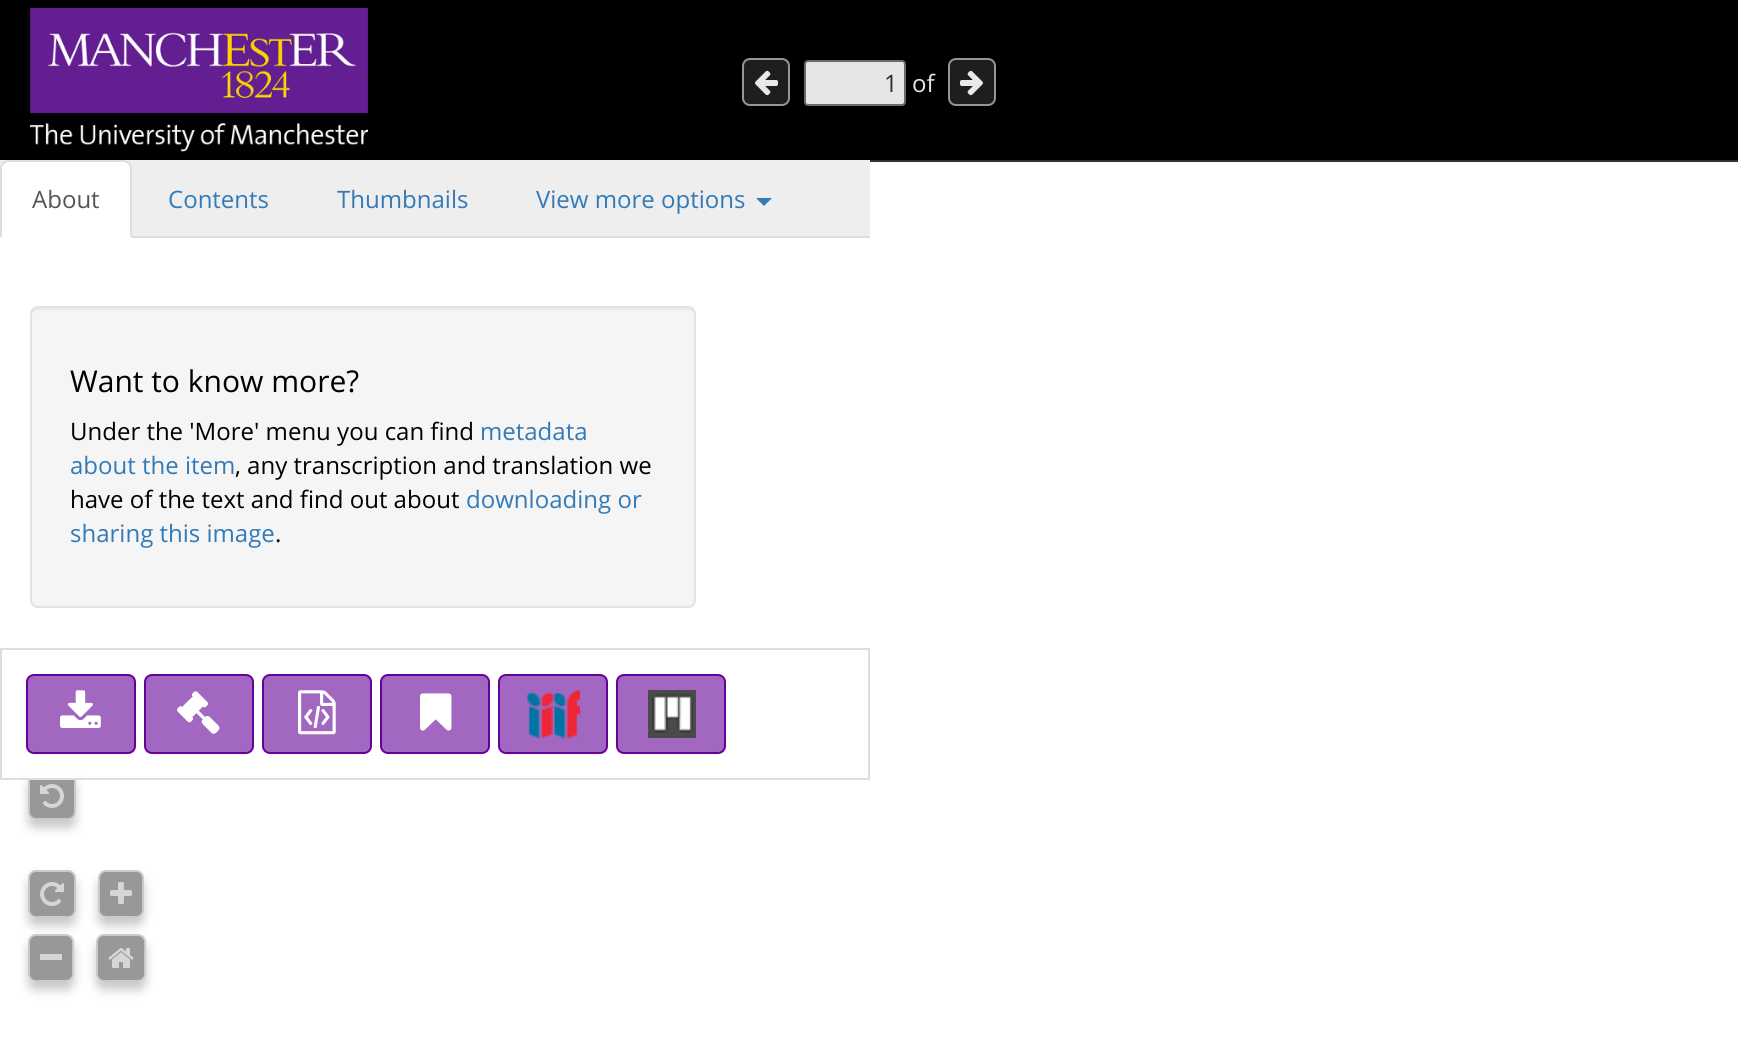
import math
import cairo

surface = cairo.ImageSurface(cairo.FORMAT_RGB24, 1738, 1063)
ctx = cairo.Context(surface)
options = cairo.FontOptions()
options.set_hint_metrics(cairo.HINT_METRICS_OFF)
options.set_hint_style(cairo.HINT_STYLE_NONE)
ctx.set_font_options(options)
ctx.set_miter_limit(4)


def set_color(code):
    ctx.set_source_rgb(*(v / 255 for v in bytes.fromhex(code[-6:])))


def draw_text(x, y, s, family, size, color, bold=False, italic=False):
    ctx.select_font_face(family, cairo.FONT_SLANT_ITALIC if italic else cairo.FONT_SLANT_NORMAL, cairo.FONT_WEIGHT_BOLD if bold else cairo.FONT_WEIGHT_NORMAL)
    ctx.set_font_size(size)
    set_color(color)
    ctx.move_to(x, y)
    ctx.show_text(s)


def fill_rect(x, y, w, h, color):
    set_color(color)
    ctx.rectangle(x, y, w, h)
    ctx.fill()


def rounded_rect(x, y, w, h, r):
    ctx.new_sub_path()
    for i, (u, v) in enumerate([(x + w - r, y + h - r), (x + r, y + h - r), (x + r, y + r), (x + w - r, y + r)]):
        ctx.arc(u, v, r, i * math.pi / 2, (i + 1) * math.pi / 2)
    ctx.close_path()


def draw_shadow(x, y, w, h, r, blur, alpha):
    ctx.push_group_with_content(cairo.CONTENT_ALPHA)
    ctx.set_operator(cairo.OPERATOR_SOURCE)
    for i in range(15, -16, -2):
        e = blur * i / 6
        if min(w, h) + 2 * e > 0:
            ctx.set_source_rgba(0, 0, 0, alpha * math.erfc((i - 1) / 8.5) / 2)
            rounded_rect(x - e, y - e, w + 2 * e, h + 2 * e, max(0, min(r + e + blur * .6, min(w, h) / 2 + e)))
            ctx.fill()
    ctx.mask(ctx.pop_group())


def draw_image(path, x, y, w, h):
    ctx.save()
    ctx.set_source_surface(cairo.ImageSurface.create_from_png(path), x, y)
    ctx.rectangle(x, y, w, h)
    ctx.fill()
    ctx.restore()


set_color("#ffffff")
ctx.paint()
fill_rect(0, 0, 1738, 160, "#000000")
fill_rect(870, 160, 868, 2, "#333333")
draw_image("assets/img1.png", 30, 8, 338, 144)
set_color("#1e1e1e")
rounded_rect(743, 59, 46, 46, 7)
ctx.fill_preserve()
set_color("#969696")
ctx.stroke()
draw_image("assets/img2.png", 755, 70, 23, 26)
set_color("#e6e6e6")
rounded_rect(805, 61, 100, 44, 3)
ctx.fill_preserve()
set_color("#6a6a6a")
ctx.stroke()
draw_text(884, 92, "1", "Open Sans", 24, "#2e2e2e")
draw_text(912, 92, "of", "Open Sans", 24, "#e6e6e6")
set_color("#1e1e1e")
rounded_rect(949, 59, 46, 46, 7)
ctx.fill_preserve()
set_color("#969696")
ctx.stroke()
draw_image("assets/img3.png", 960, 70, 23, 26)
fill_rect(0, 160, 870, 76, "#eeeeee")
fill_rect(132, 236, 738, 2, "#dddddd")
set_color("#ffffff")
ctx.new_path()
ctx.move_to(8, 160)
ctx.line_to(124, 160)
ctx.curve_to(128.5, 160, 132, 163.5, 132, 168)
ctx.line_to(132, 238)
ctx.line_to(0, 238)
ctx.line_to(0, 168)
ctx.curve_to(0, 163.5, 3.5, 160, 8, 160)
ctx.close_path()
ctx.fill()
set_color("#dddddd")
ctx.new_path()
ctx.move_to(8, 160)
ctx.curve_to(6, 160, 4, 161, 2, 162)
ctx.line_to(4, 164)
ctx.line_to(7, 162)
ctx.line_to(125, 162)
ctx.line_to(128, 164)
ctx.line_to(130, 162)
ctx.curve_to(128, 161, 126, 160, 124, 160)
ctx.close_path()
ctx.fill()
ctx.new_path()
ctx.move_to(132, 238)
ctx.line_to(132, 168)
ctx.curve_to(132, 166, 131, 164, 130, 162)
ctx.line_to(128, 164)
ctx.curve_to(129, 165, 130, 166, 130, 168)
ctx.line_to(130, 236)
ctx.close_path()
ctx.fill()
ctx.new_path()
ctx.move_to(0, 238)
ctx.line_to(2, 236)
ctx.line_to(2, 168)
ctx.curve_to(2, 166, 3, 165, 4, 164)
ctx.line_to(2, 162)
ctx.curve_to(1, 164, 0, 166, 0, 168)
ctx.close_path()
ctx.fill()
draw_text(32, 208, "About", "Open Sans", 24, "#555555")
draw_text(168, 208, "Contents", "Open Sans", 24, "#337ab7")
draw_text(337, 208, "Thumbnails", "Open Sans", 24, "#337ab7")
draw_text(536, 208, "View more options", "Open Sans", 24, "#337ab7")
ctx.new_path()
ctx.move_to(756, 198)
ctx.line_to(772, 198)
ctx.line_to(764, 206)
ctx.close_path()
ctx.fill()
set_color("#f5f5f5")
rounded_rect(30, 306, 666, 302, 8)
ctx.fill()
set_color("#e9e9e9")
ctx.new_path()
ctx.move_to(38, 310)
ctx.line_to(688, 310)
ctx.curve_to(691, 310, 694, 313, 694, 316)
ctx.curve_to(694, 312, 693, 308, 688, 308)
ctx.line_to(38, 308)
ctx.curve_to(33, 308, 32, 312, 32, 316)
ctx.curve_to(32, 313, 35, 310, 38, 310)
ctx.close_path()
ctx.fill()
rounded_rect(31, 307, 664, 300, 7)
set_color("#e3e3e3")
ctx.stroke()
draw_text(70, 392, "Want to know more?", "Open Sans", 30, "#000000")
draw_text(70, 440, "Under the 'More' menu you can find", "Open Sans", 24, "#000000")
draw_text(480, 440, "metadata", "Open Sans", 24, "#337ab7")
draw_text(70, 474, "about the item", "Open Sans", 24, "#337ab7")
draw_text(235, 474, ", any transcription and translation we", "Open Sans", 24, "#000000")
draw_text(70, 508, "have of the text and find out about", "Open Sans", 24, "#000000")
draw_text(466, 508, "downloading or", "Open Sans", 24, "#337ab7")
draw_text(70, 542, "sharing this image", "Open Sans", 24, "#337ab7")
draw_text(275, 542, ".", "Open Sans", 24, "#000000")
ctx.save()
ctx.set_fill_rule(cairo.FILL_RULE_EVEN_ODD)
ctx.new_path()
ctx.move_to(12, 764)
ctx.line_to(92, 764)
ctx.line_to(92, 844)
ctx.line_to(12, 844)
ctx.close_path()
ctx.move_to(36, 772)
ctx.line_to(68, 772)
ctx.curve_to(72.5, 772, 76, 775.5, 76, 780)
ctx.line_to(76, 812)
ctx.curve_to(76, 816.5, 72.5, 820, 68, 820)
ctx.line_to(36, 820)
ctx.curve_to(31.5, 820, 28, 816.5, 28, 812)
ctx.line_to(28, 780)
ctx.curve_to(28, 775.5, 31.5, 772, 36, 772)
ctx.close_path()
ctx.clip()
set_color("#666666")
draw_shadow(28, 780, 48, 48, 8, 5, 0.35)
ctx.restore()
ctx.set_source_rgba(0.498, 0.498, 0.498, 0.8)
rounded_rect(29, 773, 46, 46, 7)
ctx.fill_preserve()
set_color("#cacaca")
ctx.stroke()
fill_rect(25, 772, 54, 6, "#ffffff")
ctx.rectangle(1, 649, 868, 130)
set_color("#dddddd")
ctx.stroke()
set_color("#a268c1")
rounded_rect(27, 675, 108, 78, 7)
ctx.fill_preserve()
set_color("#660099")
ctx.stroke()
draw_image("assets/img4.png", 60, 690, 41, 38)
set_color("#a268c1")
rounded_rect(145, 675, 108, 78, 7)
ctx.fill_preserve()
set_color("#660099")
ctx.stroke()
draw_image("assets/img5.png", 177, 691, 43, 43)
set_color("#a268c1")
rounded_rect(263, 675, 108, 78, 7)
ctx.fill_preserve()
set_color("#660099")
ctx.stroke()
draw_image("assets/img6.png", 298, 690, 38, 45)
set_color("#a268c1")
rounded_rect(381, 675, 108, 78, 7)
ctx.fill_preserve()
set_color("#660099")
ctx.stroke()
draw_image("assets/img7.png", 420, 693, 32, 38)
set_color("#a268c1")
rounded_rect(499, 675, 108, 78, 7)
ctx.fill_preserve()
set_color("#660099")
ctx.stroke()
draw_image("assets/img8.png", 527, 690, 53, 48)
set_color("#a268c1")
rounded_rect(617, 675, 108, 78, 7)
ctx.fill_preserve()
set_color("#660099")
ctx.stroke()
draw_image("assets/img9.png", 648, 690, 48, 48)
draw_image("assets/img10.png", 40, 784, 24, 24)
ctx.save()
ctx.set_fill_rule(cairo.FILL_RULE_EVEN_ODD)
ctx.new_path()
ctx.move_to(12, 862)
ctx.line_to(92, 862)
ctx.line_to(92, 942)
ctx.line_to(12, 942)
ctx.close_path()
ctx.move_to(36, 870)
ctx.line_to(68, 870)
ctx.curve_to(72.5, 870, 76, 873.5, 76, 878)
ctx.line_to(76, 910)
ctx.curve_to(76, 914.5, 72.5, 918, 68, 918)
ctx.line_to(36, 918)
ctx.curve_to(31.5, 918, 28, 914.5, 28, 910)
ctx.line_to(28, 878)
ctx.curve_to(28, 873.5, 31.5, 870, 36, 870)
ctx.close_path()
ctx.clip()
set_color("#666666")
draw_shadow(28, 878, 48, 48, 8, 5, 0.35)
ctx.restore()
ctx.set_source_rgba(0.498, 0.498, 0.498, 0.8)
rounded_rect(29, 871, 46, 46, 7)
ctx.fill_preserve()
set_color("#cacaca")
ctx.stroke()
draw_image("assets/img11.png", 40, 882, 24, 24)
ctx.save()
ctx.set_fill_rule(cairo.FILL_RULE_EVEN_ODD)
ctx.new_path()
ctx.move_to(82, 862)
ctx.line_to(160, 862)
ctx.line_to(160, 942)
ctx.line_to(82, 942)
ctx.close_path()
ctx.move_to(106, 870)
ctx.line_to(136, 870)
ctx.curve_to(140.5, 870, 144, 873.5, 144, 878)
ctx.line_to(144, 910)
ctx.curve_to(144, 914.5, 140.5, 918, 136, 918)
ctx.line_to(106, 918)
ctx.curve_to(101.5, 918, 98, 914.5, 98, 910)
ctx.line_to(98, 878)
ctx.curve_to(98, 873.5, 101.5, 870, 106, 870)
ctx.close_path()
ctx.clip()
set_color("#666666")
draw_shadow(98, 878, 46, 48, 8, 5, 0.35)
ctx.restore()
ctx.set_source_rgba(0.498, 0.498, 0.498, 0.8)
rounded_rect(99, 871, 44, 46, 7)
ctx.fill_preserve()
set_color("#cacaca")
ctx.stroke()
draw_image("assets/img12.png", 110, 882, 22, 22)
ctx.save()
ctx.set_fill_rule(cairo.FILL_RULE_EVEN_ODD)
ctx.new_path()
ctx.move_to(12, 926)
ctx.line_to(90, 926)
ctx.line_to(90, 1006)
ctx.line_to(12, 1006)
ctx.close_path()
ctx.move_to(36, 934)
ctx.line_to(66, 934)
ctx.curve_to(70.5, 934, 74, 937.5, 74, 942)
ctx.line_to(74, 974)
ctx.curve_to(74, 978.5, 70.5, 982, 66, 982)
ctx.line_to(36, 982)
ctx.curve_to(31.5, 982, 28, 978.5, 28, 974)
ctx.line_to(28, 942)
ctx.curve_to(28, 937.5, 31.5, 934, 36, 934)
ctx.close_path()
ctx.clip()
set_color("#666666")
draw_shadow(28, 942, 46, 48, 8, 5, 0.35)
ctx.restore()
ctx.set_source_rgba(0.498, 0.498, 0.498, 0.8)
rounded_rect(29, 935, 44, 46, 7)
ctx.fill_preserve()
set_color("#cacaca")
ctx.stroke()
fill_rect(40, 954, 22, 6, "#d6d6d6")
ctx.save()
ctx.set_fill_rule(cairo.FILL_RULE_EVEN_ODD)
ctx.new_path()
ctx.move_to(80, 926)
ctx.line_to(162, 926)
ctx.line_to(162, 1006)
ctx.line_to(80, 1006)
ctx.close_path()
ctx.move_to(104, 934)
ctx.line_to(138, 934)
ctx.curve_to(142.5, 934, 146, 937.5, 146, 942)
ctx.line_to(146, 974)
ctx.curve_to(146, 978.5, 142.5, 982, 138, 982)
ctx.line_to(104, 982)
ctx.curve_to(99.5, 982, 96, 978.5, 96, 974)
ctx.line_to(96, 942)
ctx.curve_to(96, 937.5, 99.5, 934, 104, 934)
ctx.close_path()
ctx.clip()
set_color("#666666")
draw_shadow(96, 942, 50, 48, 8, 5, 0.35)
ctx.restore()
ctx.set_source_rgba(0.498, 0.498, 0.498, 0.8)
rounded_rect(97, 935, 48, 46, 7)
ctx.fill_preserve()
set_color("#cacaca")
ctx.stroke()
draw_image("assets/img13.png", 108, 948, 26, 20)
surface.write_to_png("output.png")
